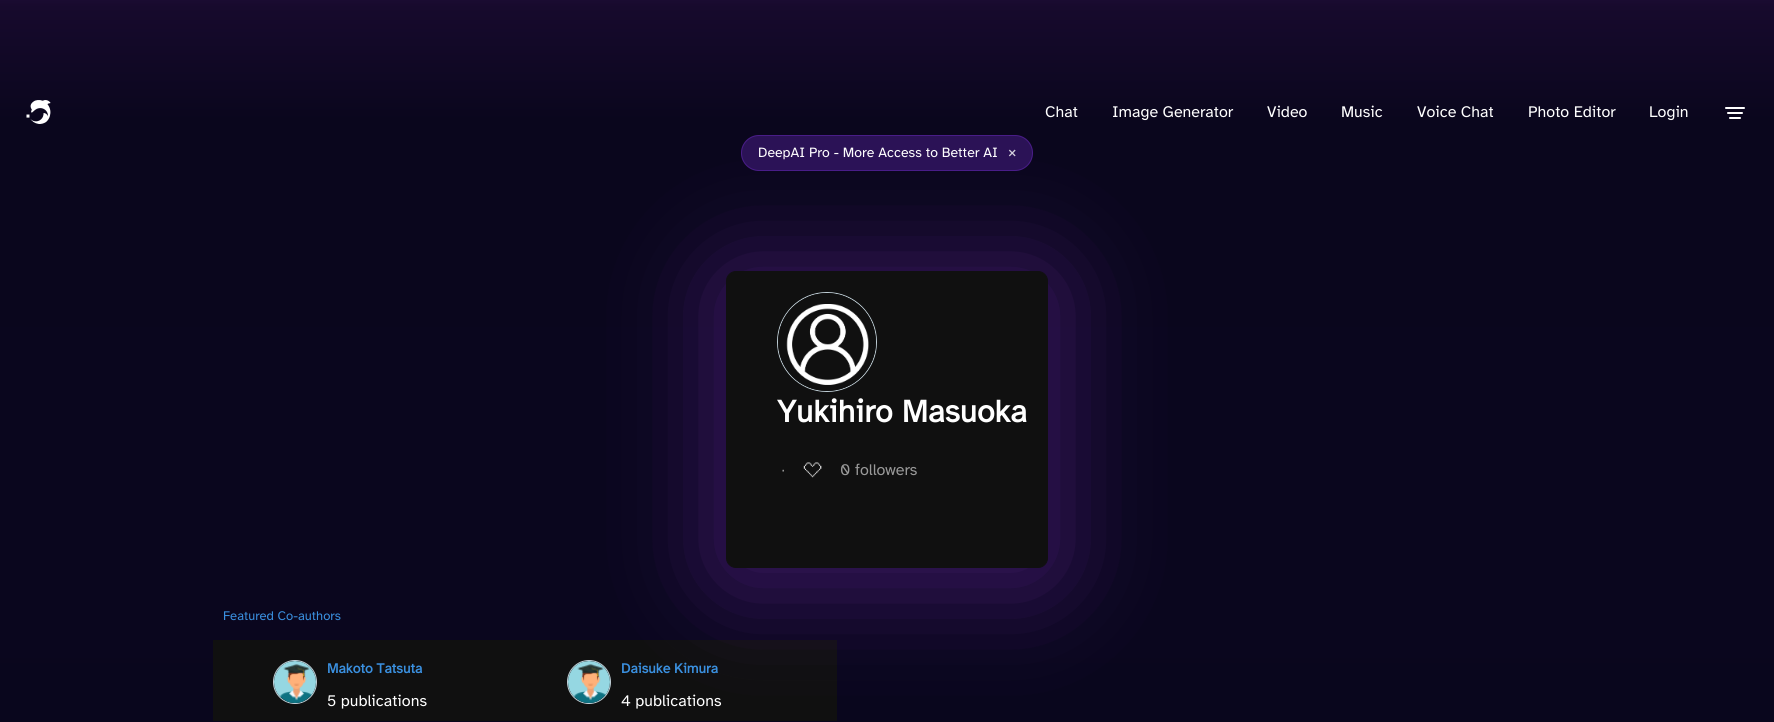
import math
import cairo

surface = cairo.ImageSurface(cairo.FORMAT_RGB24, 1774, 722)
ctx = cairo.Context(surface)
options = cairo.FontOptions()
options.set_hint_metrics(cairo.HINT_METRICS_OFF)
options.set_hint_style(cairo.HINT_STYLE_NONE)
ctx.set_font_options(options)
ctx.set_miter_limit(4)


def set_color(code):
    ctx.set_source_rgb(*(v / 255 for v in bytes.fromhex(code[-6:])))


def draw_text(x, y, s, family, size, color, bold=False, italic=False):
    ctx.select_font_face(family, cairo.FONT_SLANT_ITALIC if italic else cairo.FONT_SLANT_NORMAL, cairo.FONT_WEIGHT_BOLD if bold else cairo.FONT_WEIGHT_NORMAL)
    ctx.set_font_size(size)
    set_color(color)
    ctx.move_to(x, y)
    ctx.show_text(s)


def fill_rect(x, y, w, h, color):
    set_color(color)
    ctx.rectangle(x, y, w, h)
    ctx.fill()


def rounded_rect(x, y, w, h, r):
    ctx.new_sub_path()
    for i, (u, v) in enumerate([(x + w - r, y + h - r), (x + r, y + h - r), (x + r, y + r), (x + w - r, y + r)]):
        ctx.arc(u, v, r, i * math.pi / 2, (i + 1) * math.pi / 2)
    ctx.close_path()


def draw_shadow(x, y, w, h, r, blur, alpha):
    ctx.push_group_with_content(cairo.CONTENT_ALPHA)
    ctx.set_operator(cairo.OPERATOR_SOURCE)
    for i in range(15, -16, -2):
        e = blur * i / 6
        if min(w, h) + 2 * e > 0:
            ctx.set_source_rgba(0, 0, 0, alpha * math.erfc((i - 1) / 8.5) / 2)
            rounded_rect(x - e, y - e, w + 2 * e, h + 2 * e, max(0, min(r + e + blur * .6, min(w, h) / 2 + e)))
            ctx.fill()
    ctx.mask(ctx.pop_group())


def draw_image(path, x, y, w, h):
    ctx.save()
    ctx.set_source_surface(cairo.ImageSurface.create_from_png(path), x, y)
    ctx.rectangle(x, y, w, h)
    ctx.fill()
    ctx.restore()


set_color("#ffffff")
ctx.paint()
gradient = cairo.LinearGradient(887, -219, 887, 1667)
gradient.add_color_stop_rgba(0, 0.467, 0.161, 0.667, 1)
gradient.add_color_stop_rgba(0.12, 0.09, 0.039, 0.176, 1)
gradient.add_color_stop_rgba(0.18, 0.039, 0.024, 0.114, 1)
gradient.add_color_stop_rgba(0.44, 0.039, 0.024, 0.118, 1)
gradient.add_color_stop_rgba(0.99, 0.004, 0.012, 0.067, 1)
ctx.set_source(gradient)
ctx.rectangle(0, 0, 1774, 722)
ctx.fill()
draw_image("assets/img1.png", 26, 100, 25, 24)
draw_text(1045, 117, "Chat", "Atkinson Hyperlegible", 16, "#ffffff")
set_color("#2b1256")
rounded_rect(741, 135, 292, 36, 18)
ctx.fill()
rounded_rect(741.5, 135.5, 291, 35, 17.5)
ctx.set_source_rgba(0.561, 0.216, 1, 0.3)
ctx.set_line_width(1)
ctx.stroke()
fill_rect(213, 640, 624, 81, "#101010")
ctx.arc(589, 682, 21.5, 0, 2 * math.pi)
set_color("#c2d1d9")
ctx.stroke()
draw_image("assets/img5.png", 568, 661, 42, 42)
set_color("#471c73")
draw_shadow(706, 259, 362, 337, 30, 46, 0.7)
draw_text(1112, 117, "Image Generator", "Atkinson Hyperlegible", 16, "#ffffff")
draw_text(1267, 117, "Video", "Atkinson Hyperlegible", 16, "#ffffff")
draw_text(1341, 117, "Music", "Atkinson Hyperlegible", 16, "#ffffff")
draw_text(1417, 117, "Voice Chat", "Atkinson Hyperlegible", 16, "#ffffff")
draw_text(1528, 117, "Photo Editor", "Atkinson Hyperlegible", 16, "#ffffff")
draw_text(1649, 117, "Login", "Atkinson Hyperlegible", 16, "#ffffff")
ctx.new_path()
ctx.move_to(1726, 108)
ctx.line_to(1744, 108)
ctx.move_to(1728, 113)
ctx.line_to(1742, 113)
ctx.move_to(1730, 118)
ctx.line_to(1740, 118)
ctx.set_line_width(2)
ctx.set_line_cap(cairo.LINE_CAP_ROUND)
ctx.stroke()
draw_text(758, 157, "DeepAI Pro - More Access to Better AI", "Atkinson Hyperlegible", 14, "#ffffff")
draw_text(1008, 157, "×", "Atkinson Hyperlegible", 16, "#d5d0dd")
set_color("#101010")
rounded_rect(726.5, 271.5, 321, 296, 9.5)
ctx.fill_preserve()
ctx.set_line_width(1)
ctx.set_line_cap(cairo.LINE_CAP_BUTT)
ctx.stroke()
ctx.arc(827, 342, 49.5, 0, 2 * math.pi)
set_color("#c2d1d9")
ctx.stroke()
draw_image("assets/img2.png", 778, 293, 98, 98)
draw_text(777, 422, "Yukihiro Masuoka", "Atkinson Hyperlegible", 32, "#ffffff", bold=True)
draw_text(781, 475, "∙", "Liberation Sans", 16, "#999999")
draw_image("assets/img3.png", 803, 462, 19, 16)
draw_text(840, 475, "0", "Atkinson Hyperlegible", 16, "#999999")
draw_text(855, 475, "followers", "Atkinson Hyperlegible", 16, "#999999")
draw_text(223, 620, "Featured Co-authors", "Atkinson Hyperlegible", 13, "#3a90e0")
ctx.new_path()
ctx.arc(295, 682, 21.5, 0, 2 * math.pi)
set_color("#c2d1d9")
ctx.stroke()
draw_image("assets/img4.png", 274, 661, 42, 42)
draw_text(327, 673, "Makoto Tatsuta", "Atkinson Hyperlegible", 14, "#3a90e0", bold=True)
draw_text(327, 706, "5 publications", "Atkinson Hyperlegible", 16, "#ffffff")
draw_text(621, 673, "Daisuke Kimura", "Atkinson Hyperlegible", 14, "#3a90e0", bold=True)
draw_text(621, 706, "4 publications", "Atkinson Hyperlegible", 16, "#ffffff")
surface.write_to_png("output.png")
